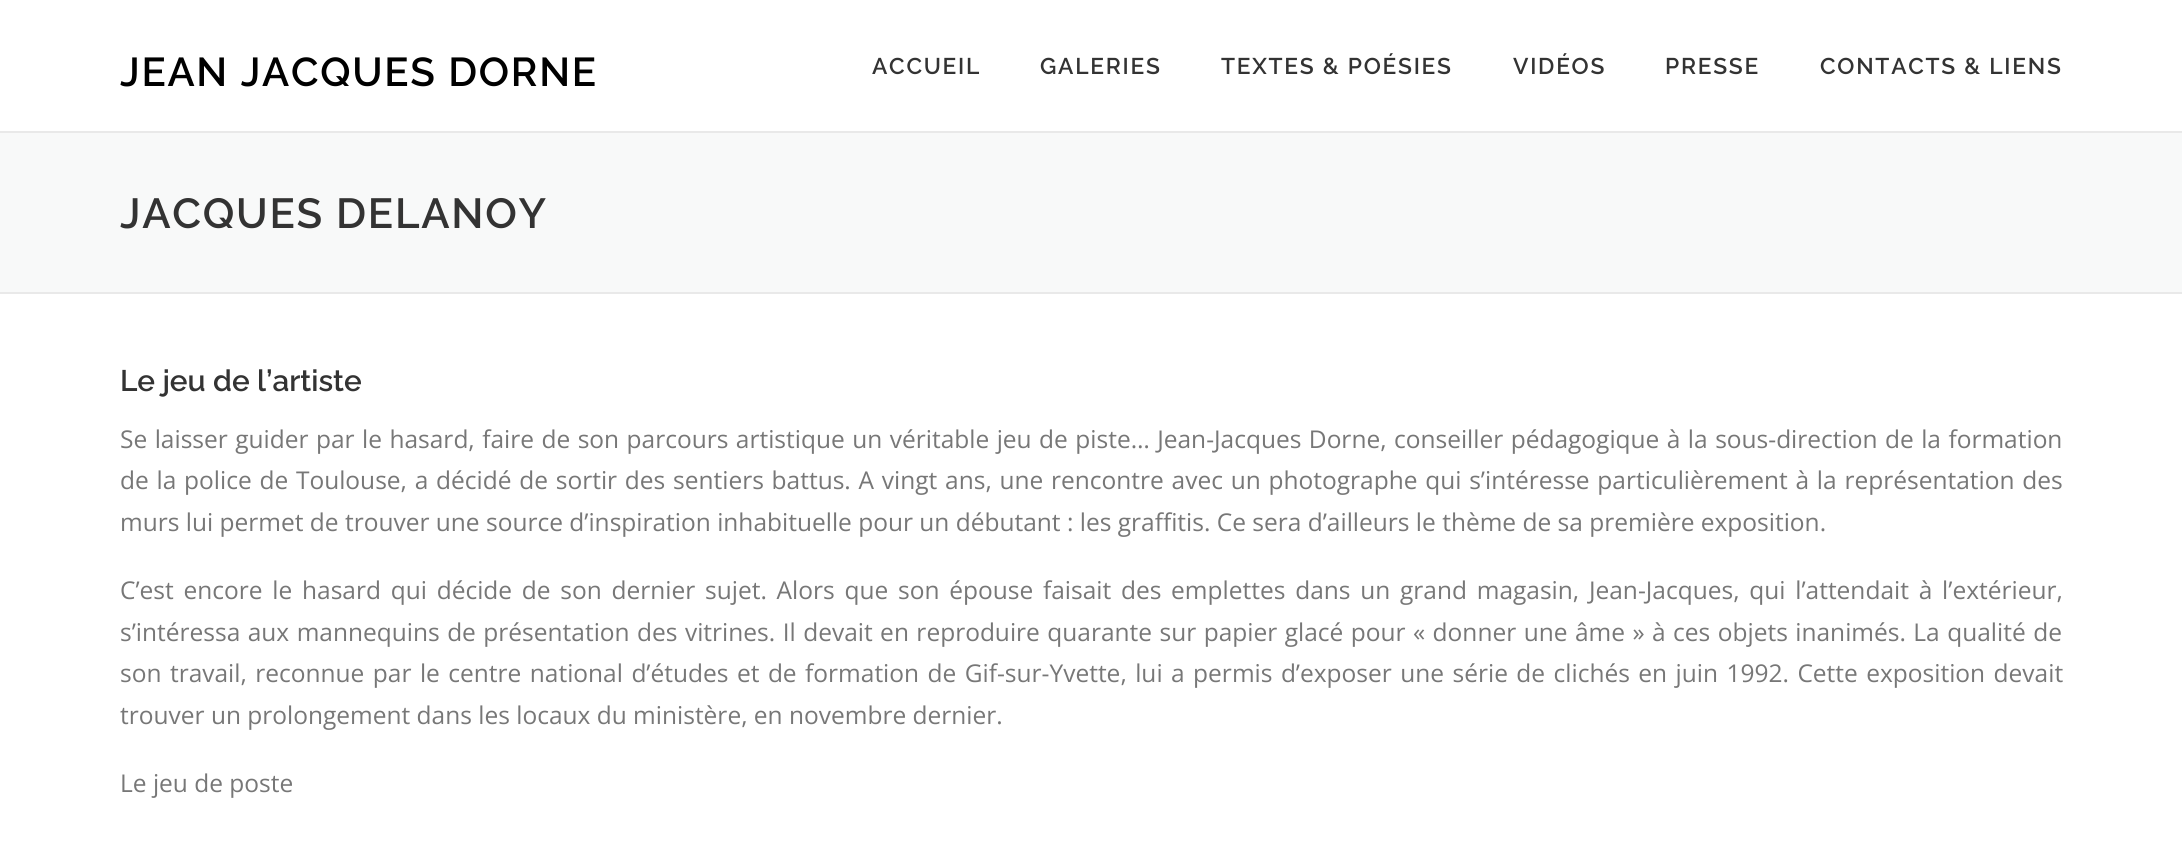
import math
import cairo

surface = cairo.ImageSurface(cairo.FORMAT_RGB24, 2182, 848)
ctx = cairo.Context(surface)
options = cairo.FontOptions()
options.set_hint_metrics(cairo.HINT_METRICS_OFF)
options.set_hint_style(cairo.HINT_STYLE_NONE)
ctx.set_font_options(options)
ctx.set_miter_limit(4)


def set_color(code):
    ctx.set_source_rgb(*(v / 255 for v in bytes.fromhex(code[-6:])))


def draw_text(x, y, s, family, size, color, bold=False, italic=False):
    ctx.select_font_face(family, cairo.FONT_SLANT_ITALIC if italic else cairo.FONT_SLANT_NORMAL, cairo.FONT_WEIGHT_BOLD if bold else cairo.FONT_WEIGHT_NORMAL)
    ctx.set_font_size(size)
    set_color(color)
    ctx.move_to(x, y)
    ctx.show_text(s)


def draw_spaced(x, y, s, letter, word):
    ctx.move_to(x, y)
    for ch in s:
        ctx.show_text(ch)
        ctx.rel_move_to(letter + word * (ch == ' '), 0)


def fill_rect(x, y, w, h, color):
    set_color(color)
    ctx.rectangle(x, y, w, h)
    ctx.fill()


set_color("#ffffff")
ctx.paint()
ctx.select_font_face("Raleway SemiBold")
ctx.set_font_size(40.25)
set_color("#000000")
draw_spaced(120, 86, "JEAN JACQUES DORNE", 1.75, 0)
ctx.set_font_size(22.75)
set_color("#333333")
draw_spaced(872, 74, "ACCUEIL", 1.75, 0)
draw_spaced(1040, 74, "GALERIES", 1.75, 0)
draw_spaced(1221, 74, "TEXTES & POÉSIES", 1.75, 0)
draw_spaced(1513, 74, "VIDÉOS", 1.75, 0)
draw_spaced(1665, 74, "PRESSE", 1.75, 0)
draw_spaced(1820, 74, "CONTACTS & LIENS", 1.75, 0)
fill_rect(0, 133, 2182, 159, "#f8f9f9")
fill_rect(0, 131, 2182, 2, "#e9e9e9")
fill_rect(0, 292, 2182, 2, "#e9e9e9")
ctx.set_font_size(42)
set_color("#333333")
draw_spaced(120, 228, "JACQUES DELANOY", 1.75, 0)
draw_text(120, 391, "Le jeu de l’artiste", "Raleway SemiBold", 29.75, "#333333")
ctx.select_font_face("Open Sans")
ctx.set_font_size(24.5)
set_color("#777777")
draw_spaced(120, 448, "Se laisser guider par le hasard, faire de son parcours artistique un véritable jeu de piste… Jean-Jacques Dorne, conseiller pédagogique à la sous-direction de la formation", 0, 1.1)
draw_spaced(120, 489, "de la police de Toulouse, a décidé de sortir des sentiers battus. A vingt ans, une rencontre avec un photographe qui s’intéresse particulièrement à la représentation des", 0, 1.4)
draw_text(120, 531, "murs lui permet de trouver une source d’inspiration inhabituelle pour un débutant : les graffitis. Ce sera d’ailleurs le thème de sa première exposition.", "Open Sans", 24.5, "#777777")
draw_spaced(120, 599, "C’est encore le hasard qui décide de son dernier sujet. Alors que son épouse faisait des emplettes dans un grand magasin, Jean-Jacques, qui l’attendait à l’extérieur,", 0, 3.4)
draw_spaced(120, 641, "s’intéressa aux mannequins de présentation des vitrines. Il devait en reproduire quarante sur papier glacé pour « donner une âme » à ces objets inanimés. La qualité de", 0, 1.1)
draw_spaced(120, 682, "son travail, reconnue par le centre national d’études et de formation de Gif-sur-Yvette, lui a permis d’exposer une série de clichés en juin 1992. Cette exposition devait", 0, 2.1)
draw_text(120, 724, "trouver un prolongement dans les locaux du ministère, en novembre dernier.", "Open Sans", 24.5, "#777777")
draw_text(120, 792, "Le jeu de poste", "Open Sans", 24.5, "#777777")
surface.write_to_png("output.png")
